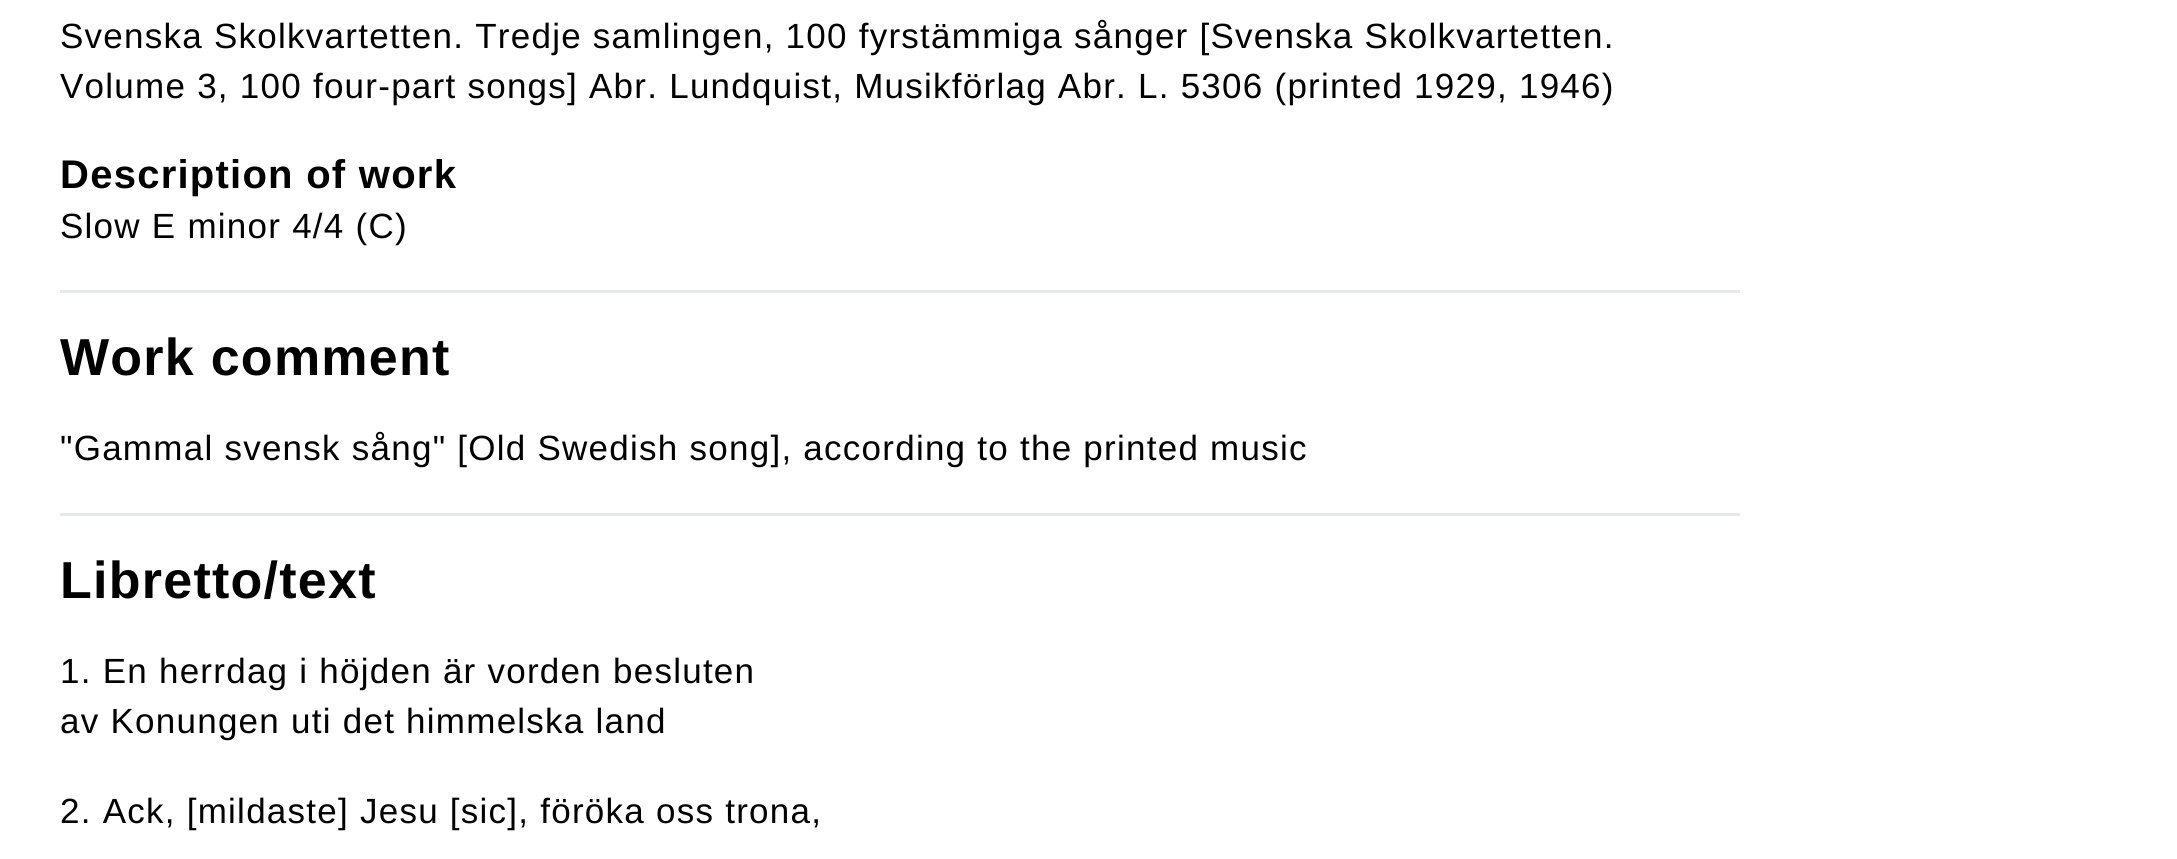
import math
import cairo

surface = cairo.ImageSurface(cairo.FORMAT_RGB24, 2177, 859)
ctx = cairo.Context(surface)
options = cairo.FontOptions()
options.set_hint_metrics(cairo.HINT_METRICS_OFF)
options.set_hint_style(cairo.HINT_STYLE_NONE)
ctx.set_font_options(options)
ctx.set_miter_limit(4)


def set_color(code):
    ctx.set_source_rgb(*(v / 255 for v in bytes.fromhex(code[-6:])))


def draw_spaced(x, y, s, letter, word):
    ctx.move_to(x, y)
    for ch in s:
        ctx.show_text(ch)
        ctx.rel_move_to(letter + word * (ch == ' '), 0)


def fill_rect(x, y, w, h, color):
    set_color(color)
    ctx.rectangle(x, y, w, h)
    ctx.fill()


set_color("#ffffff")
ctx.paint()
ctx.select_font_face("Liberation Sans")
ctx.set_font_size(35)
set_color("#000000")
draw_spaced(60, 48, "Svenska Skolkvartetten. Tredje samlingen, 100 fyrstämmiga sånger [Svenska Skolkvartetten.", 1.25, 0)
draw_spaced(60, 98, "Volume 3, 100 four-part songs] Abr. Lundquist, Musikförlag Abr. L. 5306 (printed 1929, 1946)", 1.25, 0)
ctx.select_font_face("Liberation Sans", cairo.FONT_SLANT_NORMAL, cairo.FONT_WEIGHT_BOLD)
ctx.set_font_size(40)
draw_spaced(60, 188, "Description of work", 1.25, 0)
ctx.select_font_face("Liberation Sans")
ctx.set_font_size(35)
draw_spaced(60, 238, "Slow E minor 4/4 (C)", 1.25, 0)
fill_rect(60, 290, 1680, 3, "#e5e7eb")
ctx.select_font_face("Liberation Sans", cairo.FONT_SLANT_NORMAL, cairo.FONT_WEIGHT_BOLD)
ctx.set_font_size(52)
set_color("#000000")
draw_spaced(60, 375, "Work comment", 1.25, 0)
ctx.select_font_face("Liberation Sans")
ctx.set_font_size(35)
draw_spaced(60, 460, "\"Gammal svensk sång\" [Old Swedish song], according to the printed music", 1.25, 0)
fill_rect(60, 513, 1680, 3, "#e5e7eb")
ctx.select_font_face("Liberation Sans", cairo.FONT_SLANT_NORMAL, cairo.FONT_WEIGHT_BOLD)
ctx.set_font_size(52)
set_color("#000000")
draw_spaced(60, 598, "Libretto/text", 1.25, 0)
ctx.select_font_face("Liberation Sans")
ctx.set_font_size(35)
draw_spaced(60, 683, "1. En herrdag i höjden är vorden besluten", 1.25, 0)
draw_spaced(60, 733, "av Konungen uti det himmelska land", 1.25, 0)
draw_spaced(60, 823, "2. Ack, [mildaste] Jesu [sic], föröka oss trona,", 1.25, 0)
surface.write_to_png("output.png")
